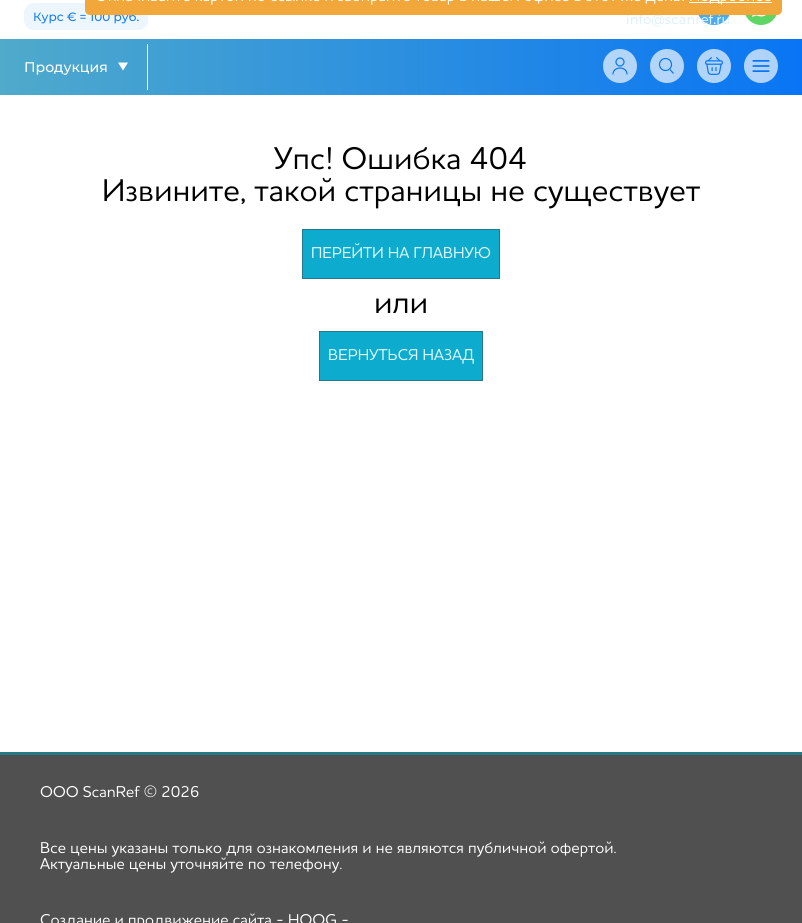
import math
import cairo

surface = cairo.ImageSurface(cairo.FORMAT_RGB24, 802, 923)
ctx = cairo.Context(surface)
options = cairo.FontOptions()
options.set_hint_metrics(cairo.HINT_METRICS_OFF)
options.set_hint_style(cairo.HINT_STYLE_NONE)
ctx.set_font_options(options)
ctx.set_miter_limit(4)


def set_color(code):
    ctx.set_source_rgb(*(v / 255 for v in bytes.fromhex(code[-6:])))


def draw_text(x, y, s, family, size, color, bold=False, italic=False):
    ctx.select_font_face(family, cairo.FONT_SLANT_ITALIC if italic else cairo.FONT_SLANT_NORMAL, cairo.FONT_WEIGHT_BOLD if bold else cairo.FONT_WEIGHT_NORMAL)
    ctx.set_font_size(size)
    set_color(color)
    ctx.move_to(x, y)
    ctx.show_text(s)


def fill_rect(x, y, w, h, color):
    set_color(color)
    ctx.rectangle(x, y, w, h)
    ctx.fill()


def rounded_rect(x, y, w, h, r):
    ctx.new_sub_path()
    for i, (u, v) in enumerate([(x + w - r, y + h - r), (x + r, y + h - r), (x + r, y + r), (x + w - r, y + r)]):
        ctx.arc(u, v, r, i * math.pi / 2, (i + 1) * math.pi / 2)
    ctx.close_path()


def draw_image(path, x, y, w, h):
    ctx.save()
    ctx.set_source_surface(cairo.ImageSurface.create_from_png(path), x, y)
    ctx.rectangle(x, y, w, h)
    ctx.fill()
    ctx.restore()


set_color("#ffffff")
ctx.paint()
set_color("#edf5fd")
rounded_rect(24, 3, 124, 27, 10)
ctx.fill()
draw_text(33, 21, "Курс € = 100 руб.", "Montserrat Medium", 12, "#1780ed")
set_color("#4babec")
ctx.new_path()
ctx.arc(714, 8, 17, 0, 2 * math.pi)
ctx.fill()
draw_image("assets/img3.png", 718, 15, 2, 1)
draw_text(626, 24, "info@scanref.ru", "Montserrat Medium", 13, "#e0f1fc")
set_color("#5fd564")
ctx.new_path()
ctx.arc(761, 8, 17, 0, 2 * math.pi)
ctx.fill()
set_color("#f1a73a")
rounded_rect(85, -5, 697, 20, 5)
ctx.fill()
draw_image("assets/img1.png", 98, 0, 586, 5)
fill_rect(689, 2, 83, 1, "#ffffff")
draw_image("assets/img2.png", 690, 0, 81, 5)
gradient = cairo.LinearGradient(0, 67, 802, 67)
gradient.add_color_stop_rgba(0, 0.31, 0.667, 0.796, 1)
gradient.add_color_stop_rgba(1, 0.035, 0.459, 0.957, 1)
ctx.set_source(gradient)
ctx.rectangle(0, 39, 802, 56)
ctx.fill()
draw_image("assets/img4.png", 752, 15, 14, 2)
ctx.set_source_rgba(1, 1, 1, 0.67)
ctx.arc(620, 66, 17, 0, 2 * math.pi)
ctx.fill()
draw_image("assets/img5.png", 612, 57, 16, 18)
ctx.arc(667, 66, 17, 0, 2 * math.pi)
ctx.fill()
ctx.arc(665.5, 64.5, 6, 0, 2 * math.pi)
set_color("#0975f4")
ctx.set_line_width(1.2)
ctx.stroke()
ctx.new_path()
ctx.move_to(670, 69.5)
ctx.line_to(673.5, 73.5)
ctx.stroke()
ctx.set_source_rgba(1, 1, 1, 0.67)
ctx.arc(714, 66, 17, 0, 2 * math.pi)
ctx.fill()
draw_image("assets/img6.png", 705, 57, 18, 18)
ctx.arc(761, 66, 17, 0, 2 * math.pi)
ctx.fill()
draw_image("assets/img7.png", 752, 60, 18, 12)
fill_rect(147, 44, 1, 46, "#ffffff")
draw_text(24, 72, "Продукция", "Montserrat Medium", 14, "#ffffff")
ctx.set_fill_rule(cairo.FILL_RULE_EVEN_ODD)
ctx.new_path()
ctx.move_to(123, 70.5)
ctx.line_to(128, 62.5)
ctx.line_to(118, 62.5)
ctx.close_path()
ctx.fill()
draw_image("assets/img8.png", 274, 146, 252, 24)
draw_image("assets/img9.png", 104, 177, 596, 32)
set_color("#0dacce")
ctx.rectangle(302.5, 229.5, 197, 49)
ctx.fill_preserve()
set_color("#257a89")
ctx.set_line_width(1)
ctx.stroke()
draw_image("assets/img10.png", 312, 243, 179, 16)
draw_image("assets/img11.png", 376, 298, 50, 15)
set_color("#0dacce")
ctx.rectangle(319.5, 331.5, 163, 49)
ctx.fill_preserve()
set_color("#257a89")
ctx.stroke()
draw_image("assets/img12.png", 329, 349, 145, 15)
fill_rect(0, 755, 802, 168, "#505050")
fill_rect(0, 752, 802, 3, "#257a89")
draw_image("assets/img13.png", 40, 785, 159, 13)
draw_image("assets/img14.png", 41, 841, 575, 16)
draw_image("assets/img15.png", 40, 857, 302, 16)
draw_image("assets/img16.png", 40, 913, 308, 10)
surface.write_to_png("output.png")
